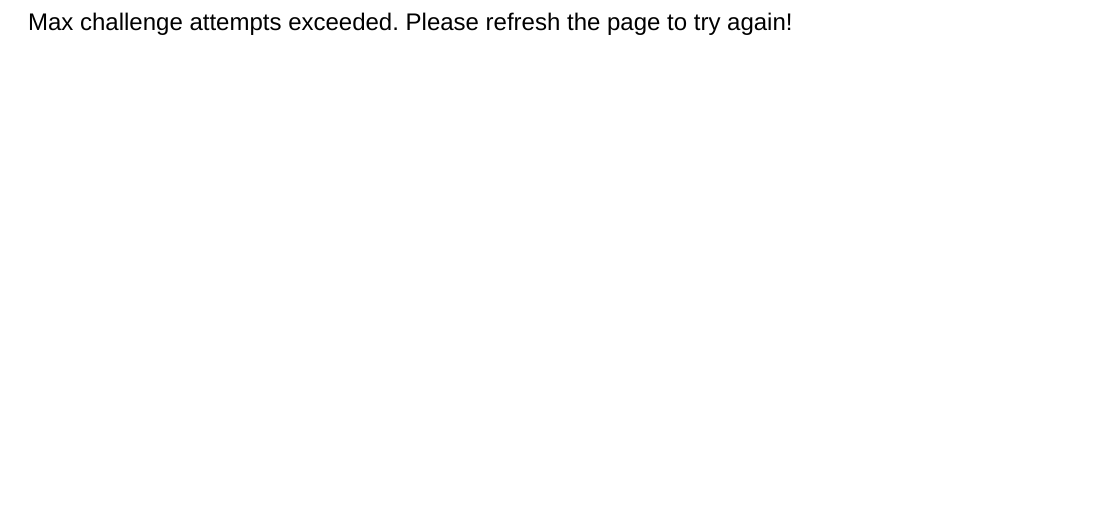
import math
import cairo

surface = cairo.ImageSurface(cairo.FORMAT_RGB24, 1095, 510)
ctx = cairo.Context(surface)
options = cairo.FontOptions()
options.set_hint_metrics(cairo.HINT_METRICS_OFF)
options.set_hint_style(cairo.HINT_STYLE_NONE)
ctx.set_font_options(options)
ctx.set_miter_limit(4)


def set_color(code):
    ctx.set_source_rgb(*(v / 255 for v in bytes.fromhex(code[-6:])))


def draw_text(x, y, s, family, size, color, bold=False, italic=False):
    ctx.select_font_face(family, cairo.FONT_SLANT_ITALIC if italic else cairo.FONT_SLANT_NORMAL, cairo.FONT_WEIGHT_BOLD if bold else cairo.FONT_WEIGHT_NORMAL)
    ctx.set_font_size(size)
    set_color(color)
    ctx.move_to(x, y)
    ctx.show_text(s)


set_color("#ffffff")
ctx.paint()
draw_text(28, 30, "Max challenge attempts exceeded. Please refresh the page to try again!", "Liberation Sans", 24, "#000000")
surface.write_to_png("output.png")
